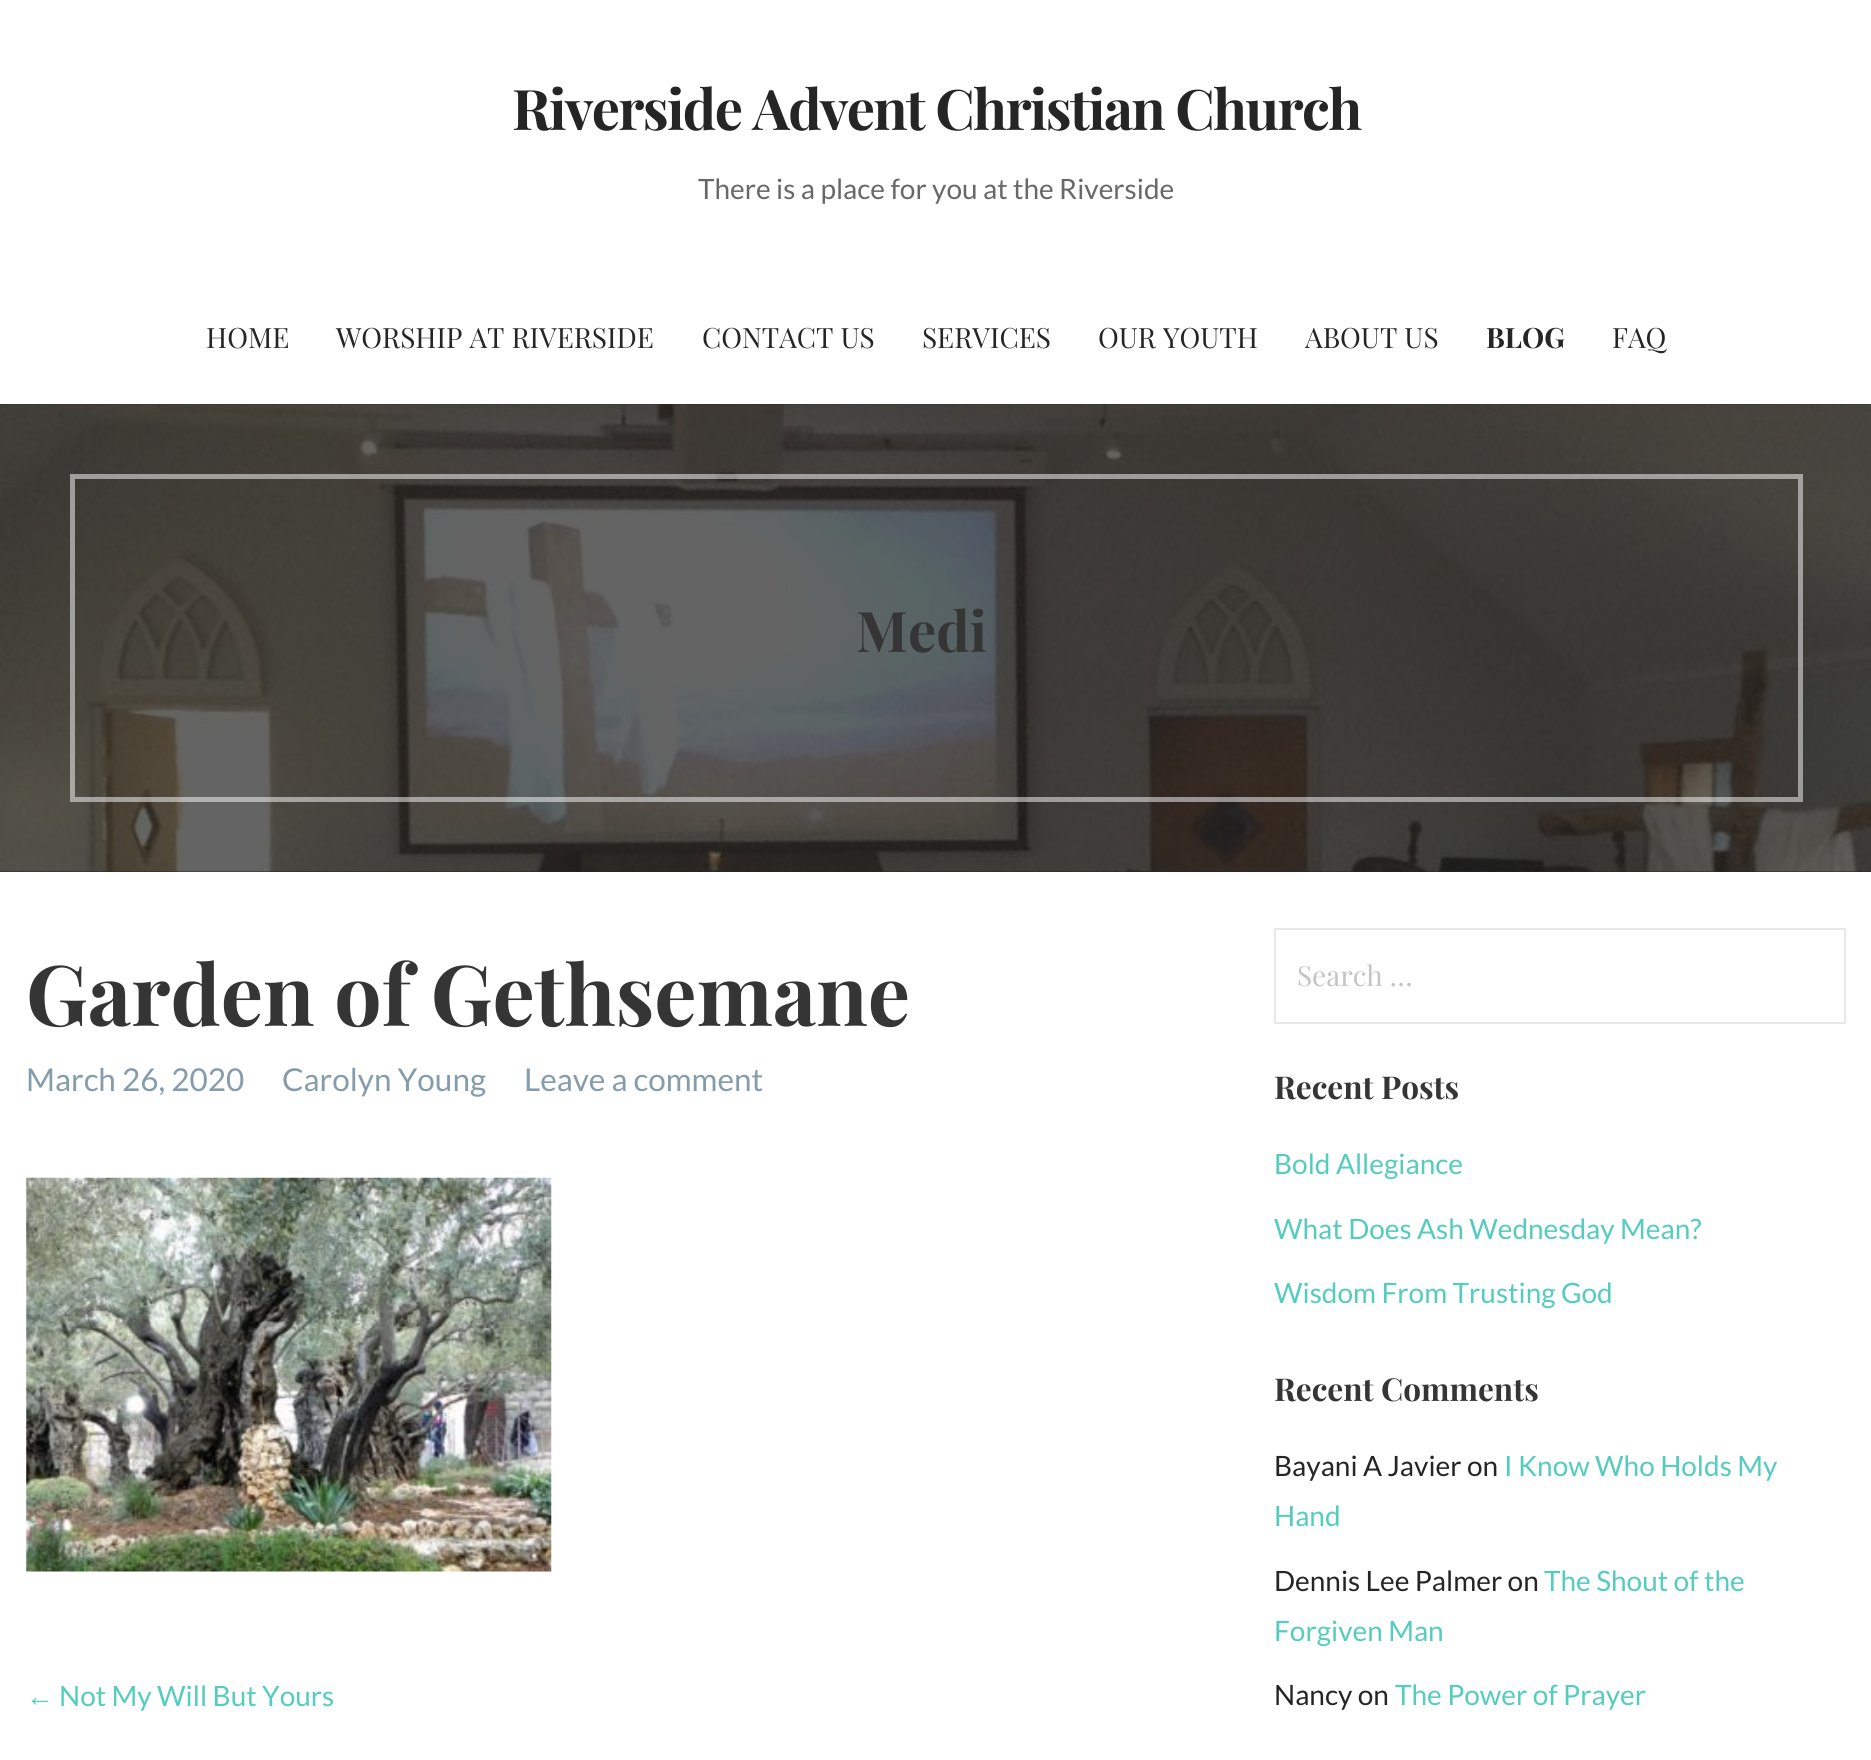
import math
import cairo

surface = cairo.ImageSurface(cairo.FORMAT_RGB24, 1871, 1760)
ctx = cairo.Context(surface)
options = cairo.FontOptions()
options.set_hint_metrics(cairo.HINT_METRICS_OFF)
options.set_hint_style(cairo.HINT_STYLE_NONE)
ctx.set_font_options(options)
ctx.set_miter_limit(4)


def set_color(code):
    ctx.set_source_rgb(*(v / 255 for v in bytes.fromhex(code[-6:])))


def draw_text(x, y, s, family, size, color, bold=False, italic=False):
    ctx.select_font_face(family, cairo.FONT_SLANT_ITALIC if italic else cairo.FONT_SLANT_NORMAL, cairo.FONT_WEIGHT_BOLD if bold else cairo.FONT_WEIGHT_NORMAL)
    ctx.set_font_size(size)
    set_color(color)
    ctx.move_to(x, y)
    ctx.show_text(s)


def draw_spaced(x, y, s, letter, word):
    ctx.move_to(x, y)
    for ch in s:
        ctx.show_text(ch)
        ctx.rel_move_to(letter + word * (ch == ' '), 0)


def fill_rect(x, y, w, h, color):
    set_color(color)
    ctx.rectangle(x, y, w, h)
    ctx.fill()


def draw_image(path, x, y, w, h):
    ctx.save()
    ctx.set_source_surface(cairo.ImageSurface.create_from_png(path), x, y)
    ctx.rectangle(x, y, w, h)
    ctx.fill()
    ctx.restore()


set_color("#ffffff")
ctx.paint()
ctx.select_font_face("Playfair Display", cairo.FONT_SLANT_NORMAL, cairo.FONT_WEIGHT_BOLD)
ctx.set_font_size(56)
set_color("#252525")
draw_spaced(512, 130, "Riverside Advent Christian Church", -1.7, 0)
draw_text(698, 199, "There is a place for you at the Riverside", "Lato", 28, "#686868")
draw_text(206, 348, "HOME", "Playfair Display", 28, "#252525")
draw_text(336, 348, "WORSHIP AT RIVERSIDE", "Playfair Display", 28, "#252525")
draw_text(702, 348, "CONTACT US", "Playfair Display", 28, "#252525")
draw_text(922, 348, "SERVICES", "Playfair Display", 28, "#252525")
draw_text(1098, 348, "OUR YOUTH", "Playfair Display", 28, "#252525")
draw_text(1305, 348, "ABOUT US", "Playfair Display", 28, "#252525")
draw_text(1486, 348, "BLOG", "Playfair Display", 28, "#252525", bold=True)
draw_text(1612, 348, "FAQ", "Playfair Display", 28, "#252525")
fill_rect(0, 404, 1871, 468, "#252525")
draw_image("assets/img1.png", 0, 404, 1871, 468)
ctx.rectangle(72.5, 476.5, 1728, 323)
ctx.set_source_rgba(1, 1, 1, 0.5)
ctx.set_line_width(5)
ctx.stroke()
draw_text(856, 652, "Medi", "Playfair Display", 56, "#353535", bold=True)
draw_text(26, 1026, "Garden of Gethsemane", "Playfair Display", 84, "#353535", bold=True)
draw_text(26, 1091, "March 26, 2020", "Lato", 31.5, "#859caa")
draw_text(282, 1091, "Carolyn Young", "Lato", 31.5, "#859caa")
draw_text(524, 1091, "Leave a comment", "Lato", 31.5, "#859caa")
draw_image("assets/img2.png", 26, 1177, 526, 395)
draw_text(26, 1706, "←", "Liberation Sans", 28, "#54ccbe")
draw_text(59, 1706, "Not My Will But Yours", "Lato", 28, "#54ccbe")
ctx.rectangle(1275, 929, 570, 94)
set_color("#e9e9e9")
ctx.set_line_width(2)
ctx.stroke()
draw_text(1297, 986, "Search …", "Playfair Display", 28, "#c4c4c4")
draw_text(1274, 1099, "Recent Posts", "Playfair Display", 31.5, "#353535", bold=True)
draw_text(1274, 1174, "Bold Allegiance", "Lato", 28, "#54ccbe")
draw_text(1274, 1239, "What Does Ash Wednesday Mean?", "Lato", 28, "#54ccbe")
draw_text(1274, 1303, "Wisdom From Trusting God", "Lato", 28, "#54ccbe")
draw_text(1274, 1401, "Recent Comments", "Playfair Display", 31.5, "#353535", bold=True)
draw_text(1274, 1476, "Bayani A Javier on", "Lato", 28, "#252525")
draw_text(1504, 1476, "I Know Who Holds My", "Lato", 28, "#54ccbe")
draw_text(1274, 1526, "Hand", "Lato", 28, "#54ccbe")
draw_text(1274, 1591, "Dennis Lee Palmer on", "Lato", 28, "#252525")
draw_text(1544, 1591, "The Shout of the", "Lato", 28, "#54ccbe")
draw_text(1274, 1641, "Forgiven Man", "Lato", 28, "#54ccbe")
draw_text(1274, 1705, "Nancy on", "Lato", 28, "#252525")
draw_text(1395, 1705, "The Power of Prayer", "Lato", 28, "#54ccbe")
surface.write_to_png("output.png")
